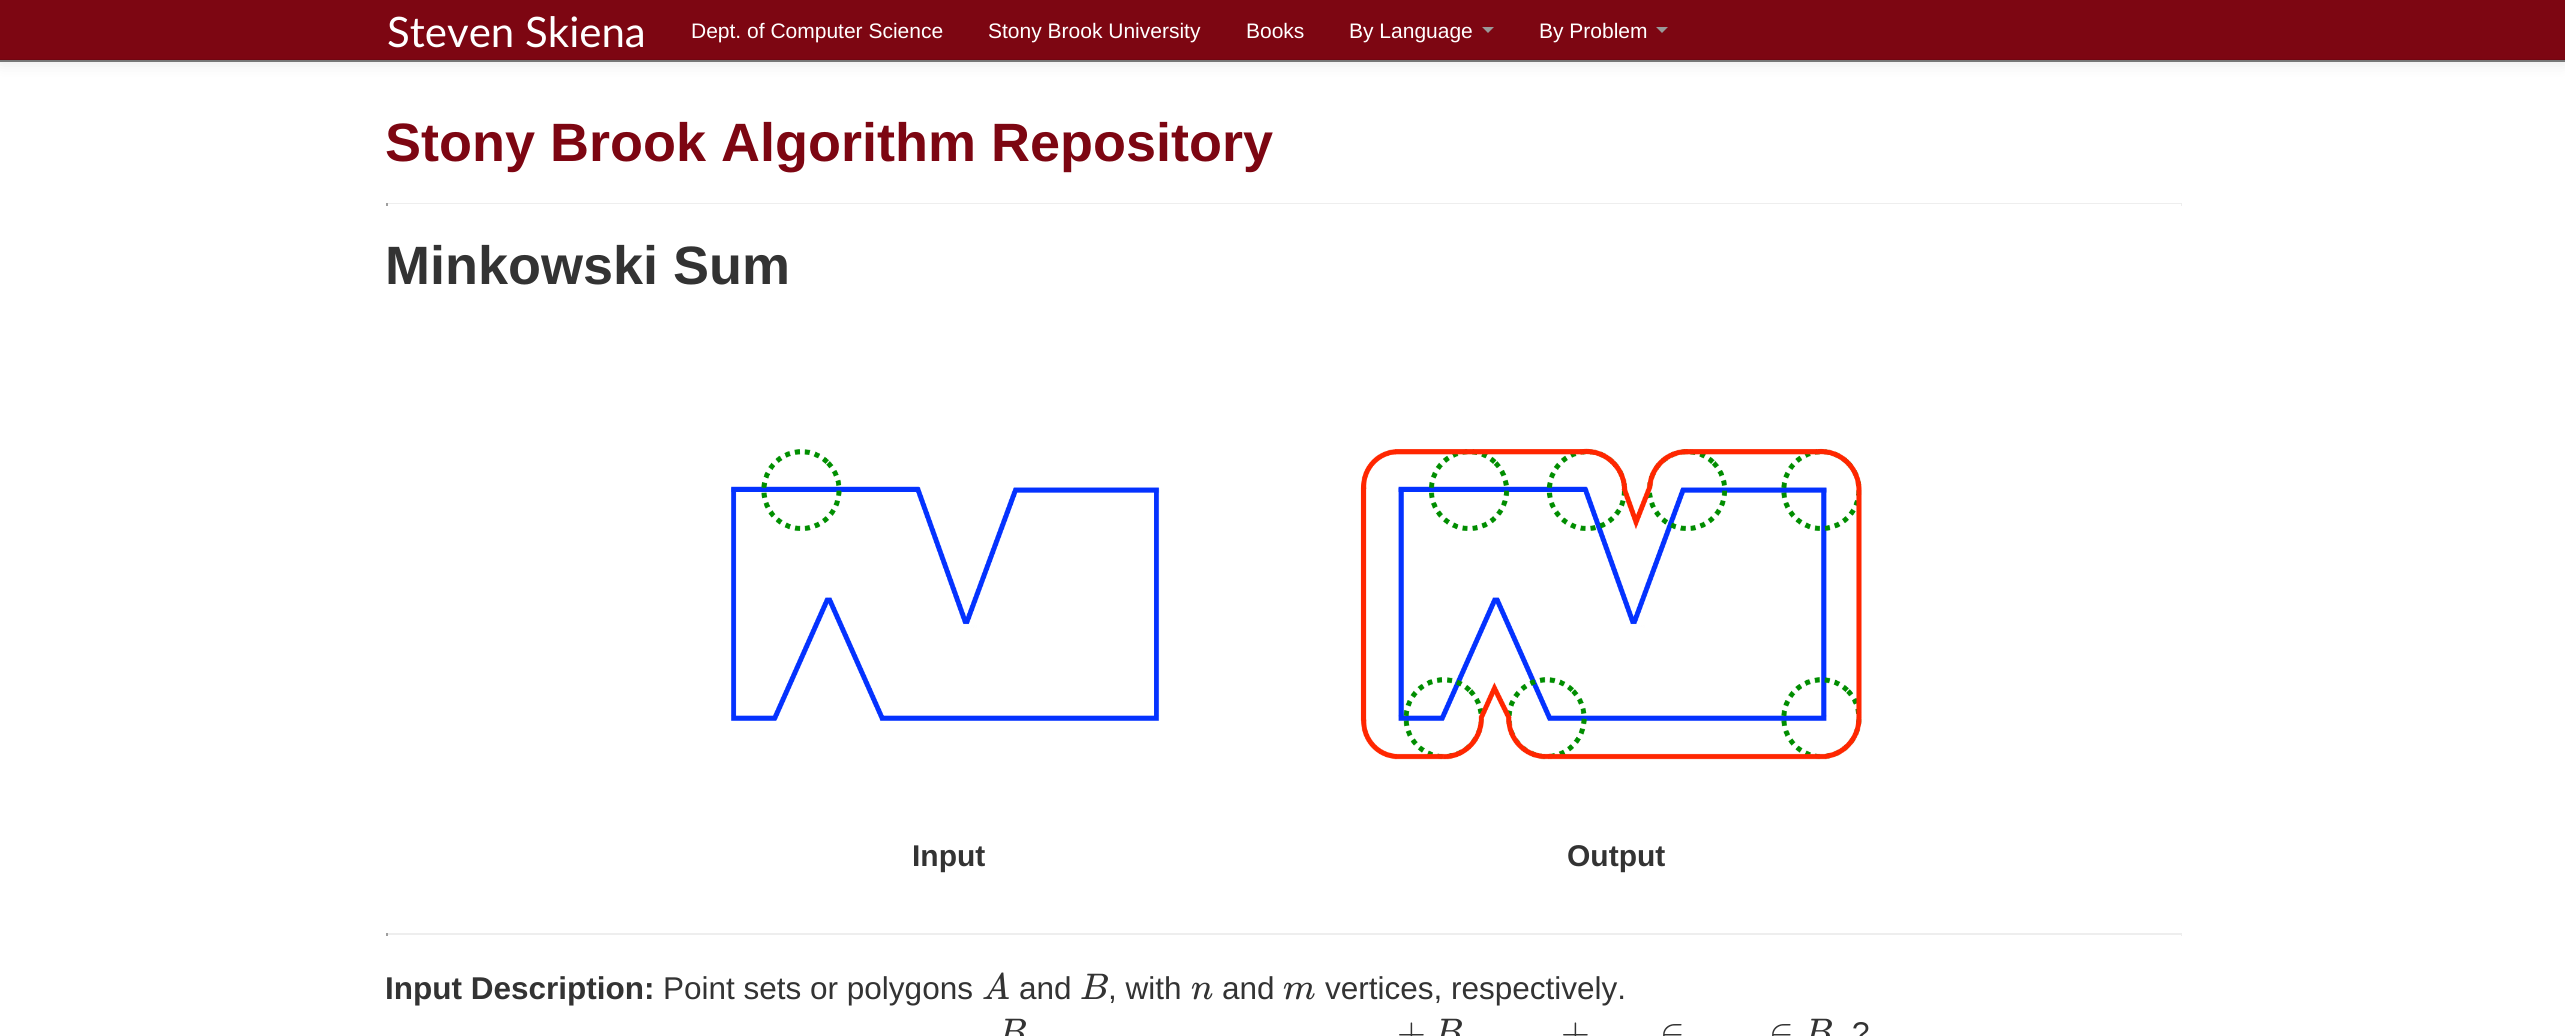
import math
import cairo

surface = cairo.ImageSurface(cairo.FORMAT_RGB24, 2565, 1036)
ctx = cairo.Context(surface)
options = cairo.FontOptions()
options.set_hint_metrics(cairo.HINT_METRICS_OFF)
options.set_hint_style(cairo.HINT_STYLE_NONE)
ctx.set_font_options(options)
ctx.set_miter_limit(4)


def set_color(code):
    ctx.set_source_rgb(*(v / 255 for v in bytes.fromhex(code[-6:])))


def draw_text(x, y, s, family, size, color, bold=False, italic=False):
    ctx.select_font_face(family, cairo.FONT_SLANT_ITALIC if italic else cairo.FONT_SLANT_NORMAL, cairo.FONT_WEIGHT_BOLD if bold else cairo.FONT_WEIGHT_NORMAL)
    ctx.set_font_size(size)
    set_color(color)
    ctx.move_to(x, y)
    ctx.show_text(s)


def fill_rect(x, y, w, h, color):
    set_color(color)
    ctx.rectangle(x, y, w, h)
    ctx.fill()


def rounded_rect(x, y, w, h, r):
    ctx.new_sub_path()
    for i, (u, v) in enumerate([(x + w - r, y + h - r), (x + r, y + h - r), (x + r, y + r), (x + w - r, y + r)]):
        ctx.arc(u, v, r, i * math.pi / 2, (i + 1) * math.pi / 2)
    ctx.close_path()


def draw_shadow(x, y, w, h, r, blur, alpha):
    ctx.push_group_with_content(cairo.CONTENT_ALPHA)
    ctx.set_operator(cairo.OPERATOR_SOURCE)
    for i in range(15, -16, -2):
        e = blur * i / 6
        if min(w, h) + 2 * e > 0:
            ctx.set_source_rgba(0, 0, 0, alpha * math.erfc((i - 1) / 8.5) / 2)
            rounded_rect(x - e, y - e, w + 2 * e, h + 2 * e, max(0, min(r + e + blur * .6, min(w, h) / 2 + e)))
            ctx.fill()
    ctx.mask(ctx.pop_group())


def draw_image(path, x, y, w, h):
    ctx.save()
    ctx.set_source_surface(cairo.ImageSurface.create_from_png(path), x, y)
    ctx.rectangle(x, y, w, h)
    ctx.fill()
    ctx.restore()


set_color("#ffffff")
ctx.paint()
set_color("#000000")
draw_shadow(0, 2, 2565, 61, 0, 7.5, 0.1)
fill_rect(0, 0, 2565, 59, "#7d0612")
fill_rect(0, 59, 2565, 1, "#710510")
fill_rect(0, 60, 2565, 2, "#777777")
draw_text(387, 47, "Steven Skiena", "Lato", 42, "#ffffff")
draw_text(691, 38, "Dept. of Computer Science", "Liberation Sans", 21, "#ffffff")
draw_text(988, 38, "Stony Brook University", "Liberation Sans", 21, "#ffffff")
draw_text(1246, 38, "Books", "Liberation Sans", 21, "#ffffff")
draw_text(1349, 38, "By Language", "Liberation Sans", 21, "#ffffff")
set_color("#999999")
ctx.new_path()
ctx.move_to(1482, 27)
ctx.line_to(1494, 27)
ctx.line_to(1488, 33)
ctx.close_path()
ctx.fill()
draw_text(1539, 38, "By Problem", "Liberation Sans", 21, "#ffffff")
set_color("#999999")
ctx.new_path()
ctx.move_to(1656, 27)
ctx.line_to(1668, 27)
ctx.line_to(1662, 33)
ctx.close_path()
ctx.fill()
draw_text(385, 161, "Stony Brook Algorithm Repository", "Liberation Sans", 54, "#7d0612", bold=True)
fill_rect(386, 203, 1795, 1, "#eeeeee")
fill_rect(2180, 203, 2, 3, "#eeeeee")
fill_rect(2180, 204, 1, 2, "#ffffff")
fill_rect(386, 203, 2, 3, "#9f9f9f")
draw_text(385, 284, "Minkowski Sum", "Liberation Sans", 54, "#333333", bold=True)
draw_image("assets/img1.png", 731, 449, 429, 272)
draw_text(912, 866, "Input", "Liberation Sans", 30, "#333333", bold=True)
draw_image("assets/img2.png", 1360, 448, 502, 312)
draw_text(1567, 866, "Output", "Liberation Sans", 30, "#333333", bold=True)
fill_rect(386, 933, 1795, 2, "#eeeeee")
fill_rect(2180, 933, 2, 3, "#eeeeee")
fill_rect(2180, 935, 1, 1, "#ffffff")
fill_rect(386, 933, 2, 3, "#9f9f9f")
draw_text(385, 999, "Input Description:", "Liberation Sans", 31.5, "#333333", bold=True)
draw_text(663, 999, "Point sets or polygons", "Liberation Sans", 31.5, "#333333")
draw_text(982, 999, "A", "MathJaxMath", 37, "#333333", italic=True)
draw_text(1019, 999, "and", "Liberation Sans", 31.5, "#333333")
draw_text(1080, 999, "B", "MathJaxMath", 37, "#333333", italic=True)
draw_text(1108, 999, ", with", "Liberation Sans", 31.5, "#333333")
draw_text(1191, 999, "n", "MathJaxMath", 37, "#333333", italic=True)
draw_text(1222, 999, "and", "Liberation Sans", 31.5, "#333333")
draw_text(1283, 999, "m", "MathJaxMath", 37, "#333333", italic=True)
draw_text(1325, 999, "vertices, respectively.", "Liberation Sans", 31.5, "#333333")
draw_text(998, 1044, "B", "MathJaxMath", 37, "#333333", italic=True)
draw_text(1397, 1044, "+", "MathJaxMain", 37, "#333333")
draw_text(1434, 1044, "B", "MathJaxMath", 37, "#333333", italic=True)
draw_text(1561, 1044, "+", "MathJaxMain", 37, "#333333")
draw_text(1660, 1044, "∈", "MathJaxMain", 37, "#333333")
draw_text(1769, 1044, "∈", "MathJaxMain", 37, "#333333")
draw_text(1804, 1044, "B", "MathJaxMath", 37, "#333333", italic=True)
draw_text(1852, 1044, "?", "Liberation Sans", 31.5, "#333333")
surface.write_to_png("output.png")
